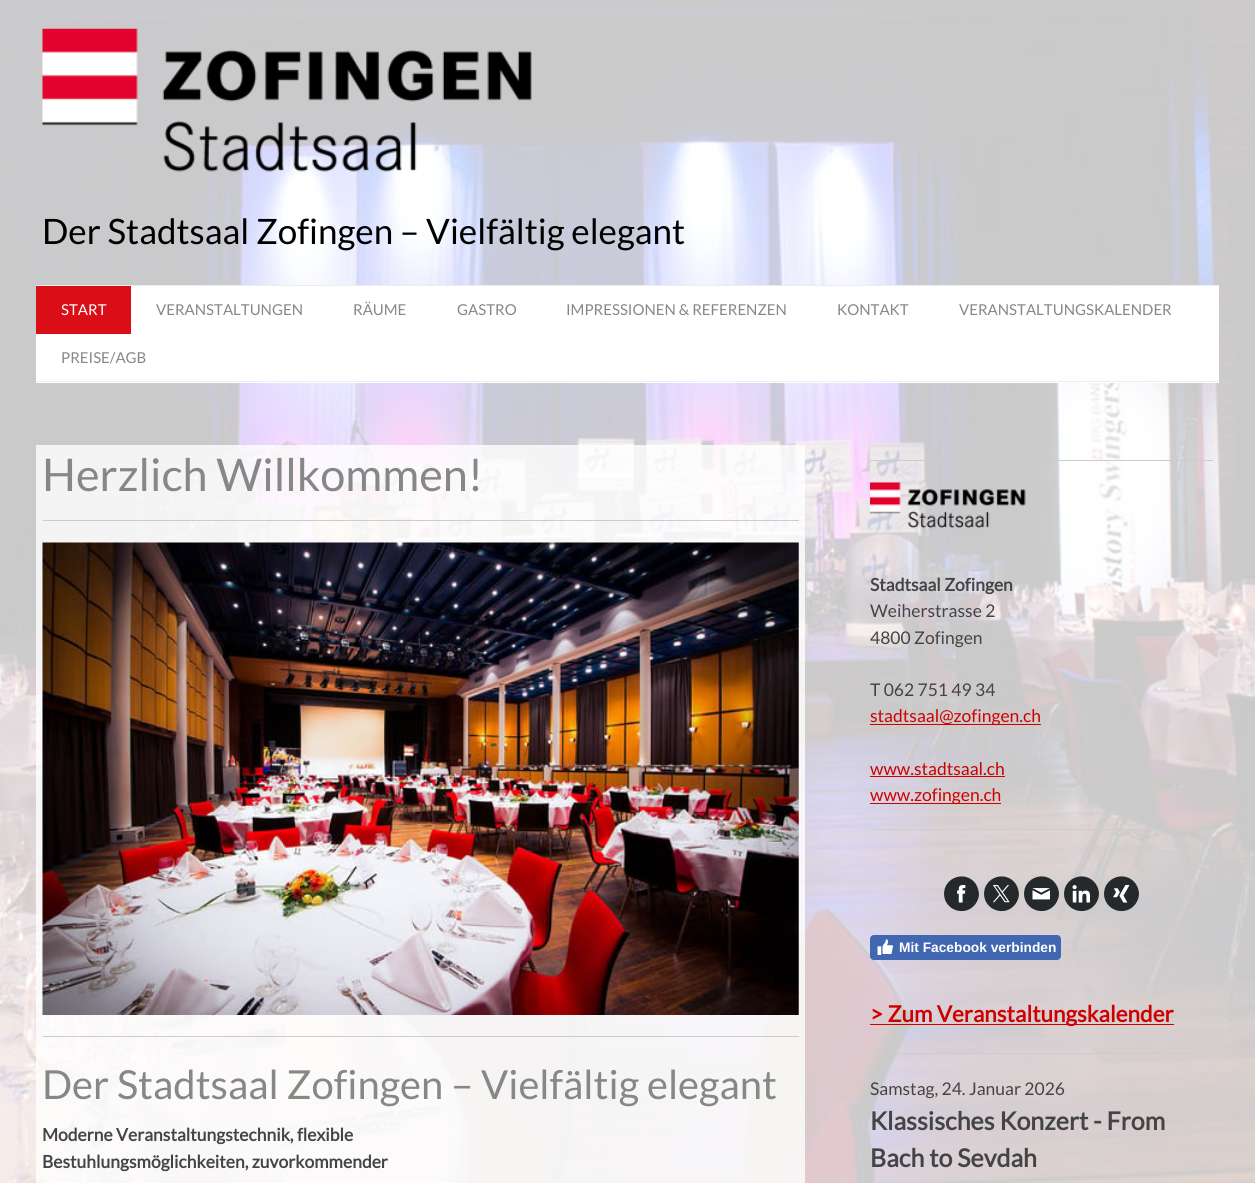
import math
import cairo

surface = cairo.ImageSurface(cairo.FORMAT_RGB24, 1255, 1183)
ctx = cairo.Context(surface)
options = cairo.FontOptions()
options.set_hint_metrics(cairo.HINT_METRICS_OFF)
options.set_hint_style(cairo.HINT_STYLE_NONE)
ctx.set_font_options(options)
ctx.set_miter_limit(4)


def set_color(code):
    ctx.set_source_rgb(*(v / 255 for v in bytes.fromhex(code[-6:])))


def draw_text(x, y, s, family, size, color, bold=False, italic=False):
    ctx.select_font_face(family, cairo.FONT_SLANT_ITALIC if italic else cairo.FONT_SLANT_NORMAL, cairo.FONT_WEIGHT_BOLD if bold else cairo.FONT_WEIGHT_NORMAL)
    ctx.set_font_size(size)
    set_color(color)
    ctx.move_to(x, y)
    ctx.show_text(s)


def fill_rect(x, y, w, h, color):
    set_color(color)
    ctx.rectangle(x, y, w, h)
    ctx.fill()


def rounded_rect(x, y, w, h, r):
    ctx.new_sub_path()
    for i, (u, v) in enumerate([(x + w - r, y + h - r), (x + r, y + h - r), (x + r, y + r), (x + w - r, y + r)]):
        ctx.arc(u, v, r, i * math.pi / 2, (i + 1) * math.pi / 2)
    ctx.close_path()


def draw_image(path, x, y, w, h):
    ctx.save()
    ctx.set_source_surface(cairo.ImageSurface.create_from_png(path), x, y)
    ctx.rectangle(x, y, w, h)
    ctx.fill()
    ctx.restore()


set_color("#ffffff")
ctx.paint()
draw_image("assets/img1.png", 0, 0, 1255, 1183)
draw_image("assets/img2.png", 42, 28, 490, 144)
draw_text(42, 244, "Der Stadtsaal Zofingen – Vielfältig elegant", "Lato", 35, "#000000")
fill_rect(36, 286, 1183, 97, "#ffffff")
fill_rect(36, 285, 1183, 1, "#ededed")
fill_rect(36, 381, 1183, 1, "#ededed")
fill_rect(36, 286, 95, 48, "#d90e16")
draw_text(61, 315, "START", "Lato", 15, "#ffffff")
draw_text(156, 315, "VERANSTALTUNGEN", "Lato", 15, "#878786")
draw_text(353, 315, "RÄUME", "Lato", 15, "#878786")
draw_text(457, 315, "GASTRO", "Lato", 15, "#878786")
draw_text(566, 315, "IMPRESSIONEN & REFERENZEN", "Lato", 15, "#878786")
draw_text(837, 315, "KONTAKT", "Lato", 15, "#878786")
draw_text(959, 315, "VERANSTALTUNGSKALENDER", "Lato", 15, "#878786")
draw_text(61, 363, "PREISE/AGB", "Lato", 15, "#878786")
ctx.set_source_rgba(1, 1, 1, 0.79)
ctx.rectangle(36, 445, 769, 738)
ctx.fill()
draw_text(42, 491, "Herzlich Willkommen!", "Lato", 45, "#878786")
fill_rect(43, 520, 756, 1, "#cccccc")
draw_image("assets/img3.png", 42, 542, 757, 473)
fill_rect(43, 1036, 756, 1, "#cccccc")
draw_text(42, 1099, "Der Stadtsaal Zofingen – Vielfältig elegant", "Lato", 40, "#878786")
draw_text(42, 1141, "Moderne Veranstaltungstechnik, flexible", "Lato", 17.5, "#444444", bold=True)
draw_text(42, 1168, "Bestuhlungsmöglichkeiten, zuvorkommender", "Lato", 17.5, "#444444", bold=True)
fill_rect(870, 460, 343, 1, "#cccccc")
draw_image("assets/img4.png", 870, 482, 156, 47)
draw_text(870, 591, "Stadtsaal Zofingen", "Lato", 17.5, "#444444", bold=True)
draw_text(870, 617, "Weiherstrasse 2", "Lato", 17.5, "#444444")
draw_text(870, 644, "4800 Zofingen", "Lato", 17.5, "#444444")
draw_text(870, 696, "T 062 751 49 34", "Lato", 17.5, "#444444")
fill_rect(870, 724, 171, 1, "#ce0000")
draw_text(870, 722, "stadtsaal@zofingen.ch", "Lato", 17.5, "#ce0000")
draw_text(870, 775, "www.stadtsaal.ch", "Lato", 17.5, "#ce0000")
fill_rect(870, 776, 135, 1, "#ce0000")
fill_rect(870, 803, 131, 1, "#ce0000")
draw_text(870, 801, "www.zofingen.ch", "Lato", 17.5, "#ce0000")
fill_rect(870, 829, 343, 1, "#cccccc")
set_color("#25292b")
ctx.new_path()
ctx.move_to(944, 893.5)
ctx.curve_to(944, 910.5, 965.5, 917.5, 975.5, 904)
ctx.curve_to(977.5, 901, 979, 897.5, 979, 894)
ctx.curve_to(978.5, 890, 977.5, 886.5, 975.5, 883.5)
ctx.curve_to(965.5, 870, 944, 877, 944, 894)
ctx.close_path()
ctx.fill()
draw_image("assets/img5.png", 957, 885, 9, 18)
ctx.new_path()
ctx.move_to(984, 893.5)
ctx.curve_to(984, 910.5, 1005.5, 917.5, 1015.5, 904)
ctx.curve_to(1017.5, 901, 1019, 897.5, 1019, 894)
ctx.curve_to(1018.5, 890, 1017.5, 886.5, 1015.5, 883.5)
ctx.curve_to(1005.5, 870, 984, 877, 984, 894)
ctx.close_path()
ctx.fill()
draw_image("assets/img6.png", 993, 885, 17, 18)
ctx.new_path()
ctx.move_to(1024, 893.5)
ctx.curve_to(1024, 910.5, 1045.5, 917.5, 1055.5, 904)
ctx.curve_to(1057.5, 901, 1059, 897.5, 1059, 894)
ctx.curve_to(1059, 890, 1057.5, 886.5, 1055.5, 883.5)
ctx.curve_to(1045.5, 870, 1024, 877, 1024, 894)
ctx.close_path()
ctx.fill()
draw_image("assets/img7.png", 1032, 888, 18, 12)
ctx.new_path()
ctx.move_to(1064, 893.5)
ctx.curve_to(1064, 910.5, 1085.5, 917.5, 1095.5, 904)
ctx.curve_to(1097.5, 901, 1099, 897.5, 1099, 894)
ctx.curve_to(1099, 890, 1097.5, 886.5, 1095.5, 883.5)
ctx.curve_to(1085.5, 870, 1064, 877, 1064, 894)
ctx.close_path()
ctx.fill()
draw_image("assets/img8.png", 1072, 885, 18, 18)
ctx.new_path()
ctx.move_to(1104, 893.5)
ctx.curve_to(1104, 910.5, 1125.5, 917.5, 1135.5, 904)
ctx.curve_to(1137.5, 901, 1139, 897.5, 1139, 894)
ctx.curve_to(1139, 890, 1137.5, 886.5, 1135.5, 883.5)
ctx.curve_to(1125.5, 870, 1104, 877, 1104, 894)
ctx.close_path()
ctx.fill()
draw_image("assets/img9.png", 1113, 885, 17, 18)
set_color("#4267b2")
rounded_rect(870.5, 935.5, 190, 24, 3.5)
ctx.fill_preserve()
ctx.set_line_width(1)
ctx.stroke()
draw_image("assets/img10.png", 877, 939, 17, 16)
draw_text(899, 952, "Mit Facebook verbinden", "Liberation Sans", 13.75, "#ffffff", bold=True)
fill_rect(870, 1024, 304, 1, "#ce0000")
draw_text(870, 1022, "> Zum Veranstaltungskalender", "Lato", 22.5, "#ce0000", bold=True)
fill_rect(870, 1053, 343, 1, "#cccccc")
draw_text(870, 1095, "Samstag, 24. Januar 2026", "Lato", 17.5, "#444444")
draw_text(870, 1130, "Klassisches Konzert - From", "Lato", 25, "#444444", bold=True)
draw_text(870, 1167, "Bach to Sevdah", "Lato", 25, "#444444", bold=True)
surface.write_to_png("output.png")
